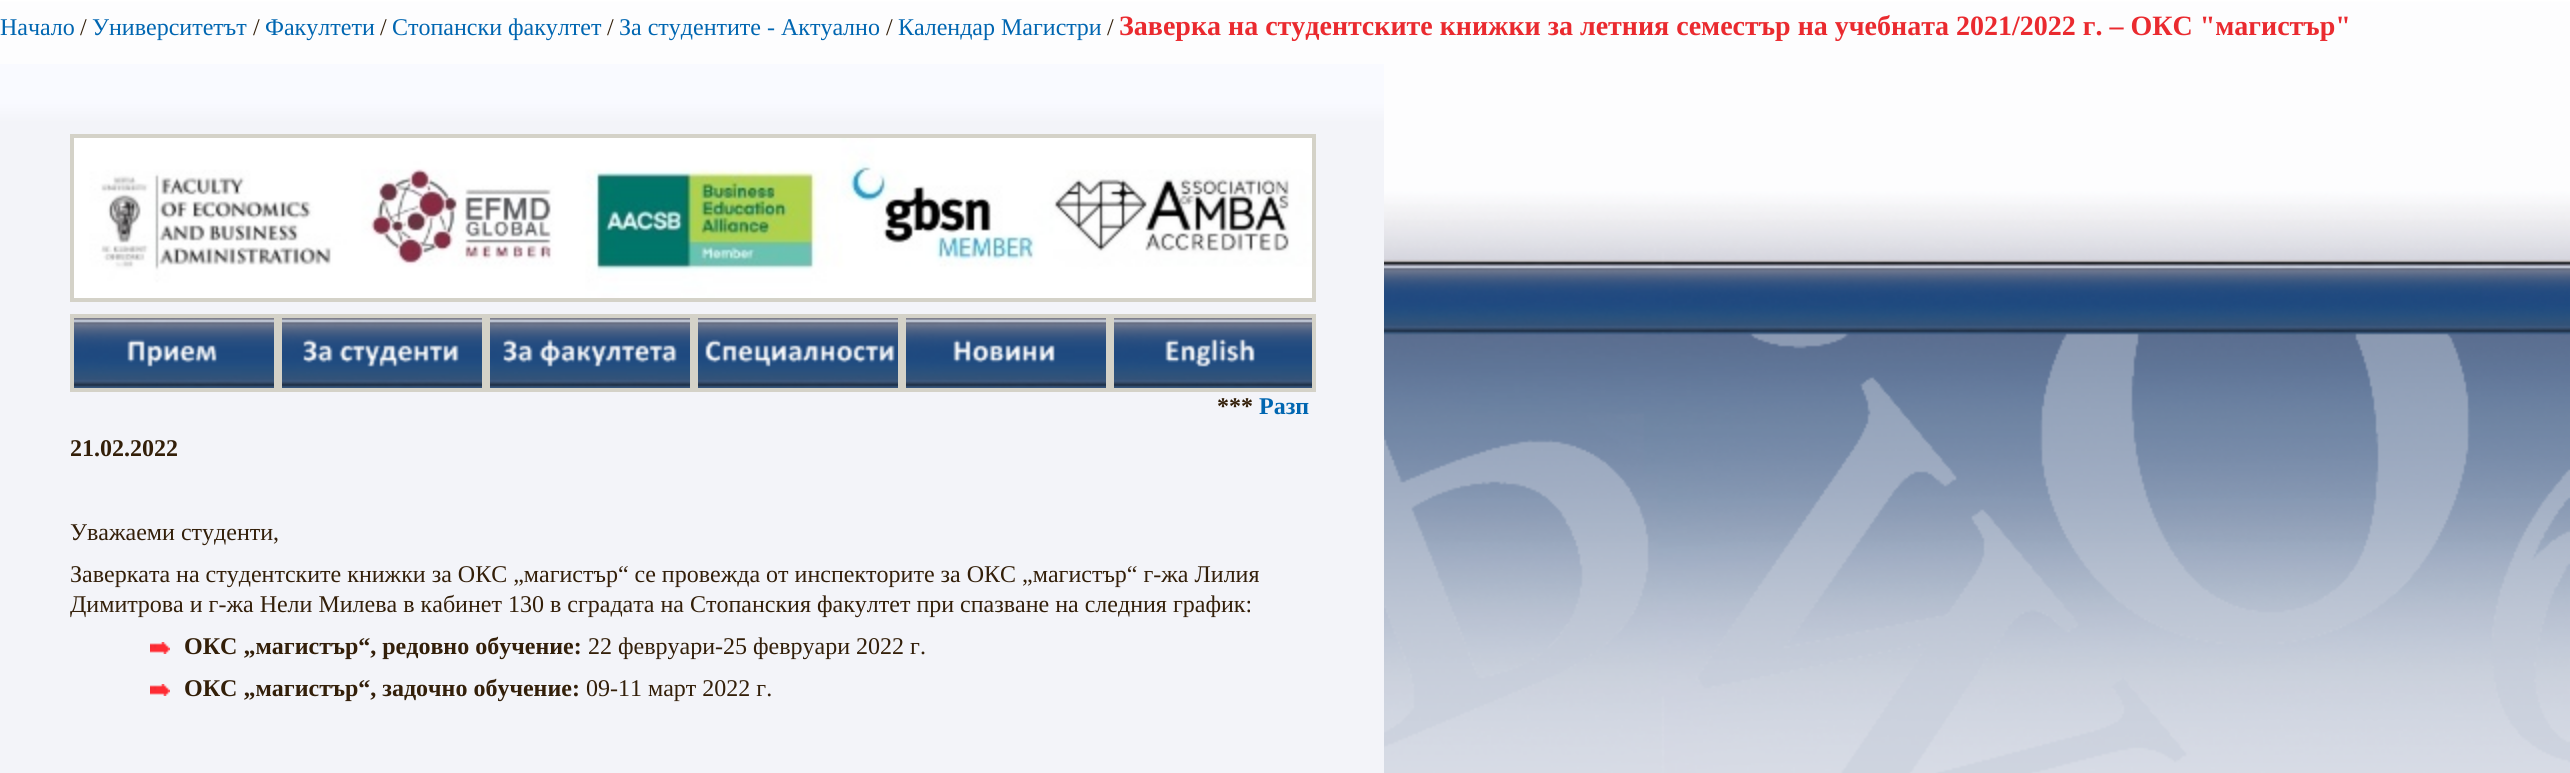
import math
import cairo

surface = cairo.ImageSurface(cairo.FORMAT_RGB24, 2570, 773)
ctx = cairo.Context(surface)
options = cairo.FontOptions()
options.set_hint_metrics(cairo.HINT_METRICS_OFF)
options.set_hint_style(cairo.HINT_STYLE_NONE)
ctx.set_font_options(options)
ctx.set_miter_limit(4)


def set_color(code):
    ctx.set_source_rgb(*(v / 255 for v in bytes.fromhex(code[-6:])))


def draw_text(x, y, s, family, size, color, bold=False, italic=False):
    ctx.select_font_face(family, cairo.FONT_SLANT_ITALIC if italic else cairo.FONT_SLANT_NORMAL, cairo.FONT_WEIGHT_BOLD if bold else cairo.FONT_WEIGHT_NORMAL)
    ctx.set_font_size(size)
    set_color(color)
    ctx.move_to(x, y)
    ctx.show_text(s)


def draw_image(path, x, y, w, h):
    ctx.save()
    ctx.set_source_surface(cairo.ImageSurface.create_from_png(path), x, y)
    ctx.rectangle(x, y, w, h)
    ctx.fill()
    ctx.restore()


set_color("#ffffff")
ctx.paint()
draw_image("assets/img1.png", 0, 0, 2570, 773)
draw_text(0, 35, "Начало", "Liberation Serif", 24, "#0066b1")
draw_text(80, 35, "/", "Liberation Serif", 24, "#331f09")
draw_text(92, 35, "Университетът", "Liberation Serif", 24, "#0066b1")
draw_text(253, 35, "/", "Liberation Serif", 24, "#331f09")
draw_text(265, 35, "Факултети", "Liberation Serif", 24, "#0066b1")
draw_text(380, 35, "/", "Liberation Serif", 24, "#331f09")
draw_text(392, 35, "Стопански факултет", "Liberation Serif", 24, "#0066b1")
draw_text(607, 35, "/", "Liberation Serif", 24, "#331f09")
draw_text(619, 35, "За студентите - Актуално", "Liberation Serif", 24, "#0066b1")
draw_text(886, 35, "/", "Liberation Serif", 24, "#331f09")
draw_text(898, 35, "Календар Магистри", "Liberation Serif", 24, "#0066b1")
draw_text(1107, 35, "/", "Liberation Serif", 24, "#331f09")
draw_text(1119, 35, "Заверка на студентските книжки за летния семестър на учебната 2021/2022 г. – ОКС \"магистър\"", "Liberation Serif", 28, "#ea2a2f", bold=True)
gradient = cairo.LinearGradient(692, 64, 692, 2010)
gradient.add_color_stop_rgba(0.02, 0.976, 0.98, 1, 1)
gradient.add_color_stop_rgba(0.03, 0.953, 0.957, 0.976, 1)
ctx.set_source(gradient)
ctx.rectangle(0, 64, 1384, 709)
ctx.fill()
ctx.rectangle(72, 136, 1242, 164)
set_color("#d4d2c8")
ctx.set_line_width(4)
ctx.stroke()
draw_image("assets/img2.png", 74, 138, 1238, 160)
ctx.rectangle(72, 316, 204, 74)
ctx.stroke()
draw_image("assets/img3.png", 74, 318, 200, 70)
ctx.rectangle(280, 316, 204, 74)
ctx.stroke()
draw_image("assets/img4.png", 282, 318, 200, 70)
ctx.rectangle(488, 316, 204, 74)
ctx.stroke()
draw_image("assets/img5.png", 490, 318, 200, 70)
ctx.rectangle(696, 316, 204, 74)
ctx.stroke()
draw_image("assets/img6.png", 698, 318, 200, 70)
ctx.rectangle(904, 316, 204, 74)
ctx.stroke()
draw_image("assets/img7.png", 906, 318, 200, 70)
ctx.rectangle(1112, 316, 202, 74)
ctx.stroke()
draw_image("assets/img8.png", 1114, 318, 198, 70)
draw_text(1217, 414, "***", "Liberation Serif", 24, "#331f09", bold=True)
draw_text(1259, 414, "Разп", "Liberation Serif", 24, "#0066b1", bold=True)
draw_text(70, 456, "21.02.2022", "Liberation Serif", 24, "#331f09", bold=True)
draw_text(70, 540, "Уважаеми студенти,", "Liberation Serif", 24, "#331f09")
draw_text(70, 582, "Заверката на студентските книжки за ОКС „магистър“ се провежда от инспекторите за ОКС „магистър“ г-жа Лилия", "Liberation Serif", 24, "#331f09")
draw_text(70, 612, "Димитрова и г-жа Нели Милева в кабинет 130 в сградата на Стопанския факултет при спазване на следния график:", "Liberation Serif", 24, "#331f09")
draw_image("assets/img9.png", 150, 642, 20, 12)
draw_text(184, 654, "ОКС „магистър“, редовно обучение:", "Liberation Serif", 24, "#331f09", bold=True)
draw_text(588, 654, "22 февруари-25 февруари 2022 г.", "Liberation Serif", 24, "#331f09")
draw_image("assets/img9.png", 150, 684, 20, 12)
draw_text(184, 696, "ОКС „магистър“, задочно обучение:", "Liberation Serif", 24, "#331f09", bold=True)
draw_text(586, 696, "09-11 март 2022 г.", "Liberation Serif", 24, "#331f09")
surface.write_to_png("output.png")
